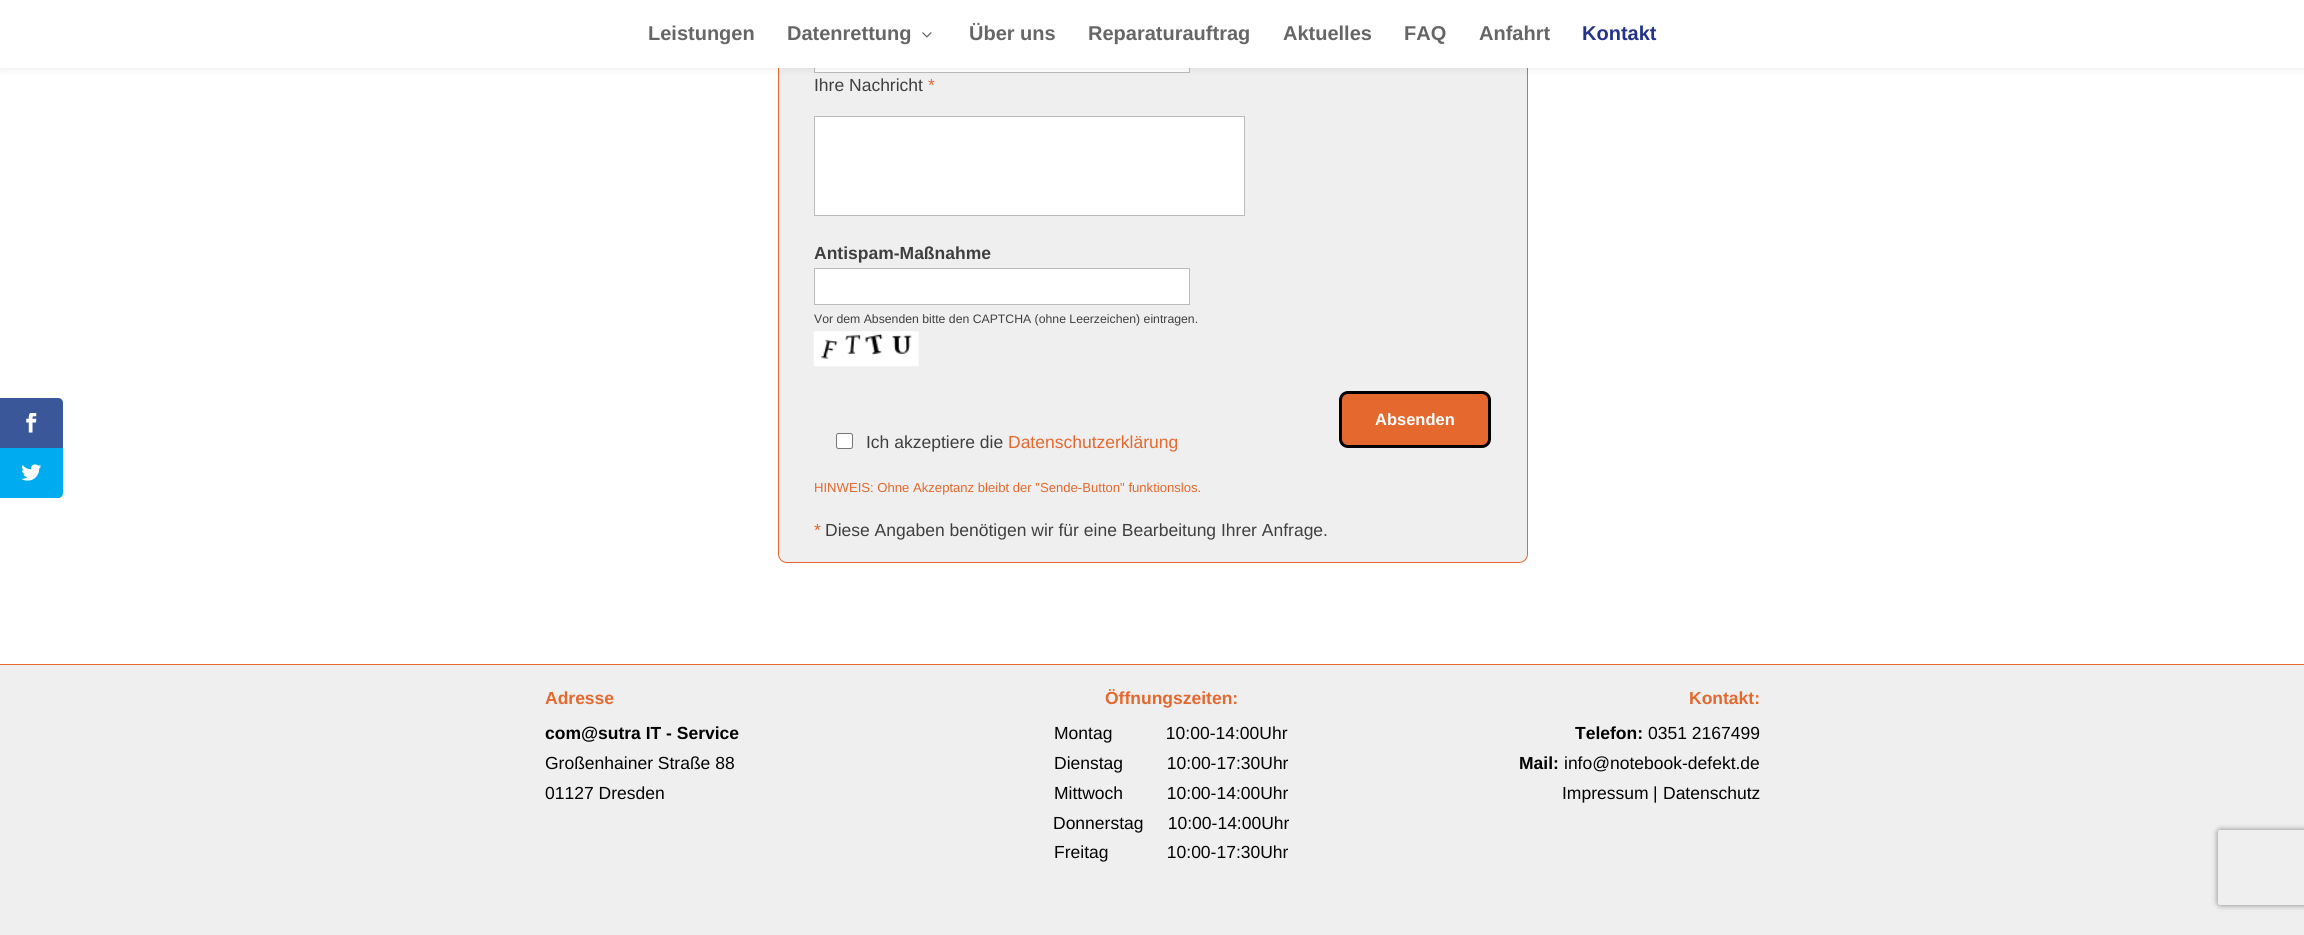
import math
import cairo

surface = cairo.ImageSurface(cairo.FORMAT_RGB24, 2304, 935)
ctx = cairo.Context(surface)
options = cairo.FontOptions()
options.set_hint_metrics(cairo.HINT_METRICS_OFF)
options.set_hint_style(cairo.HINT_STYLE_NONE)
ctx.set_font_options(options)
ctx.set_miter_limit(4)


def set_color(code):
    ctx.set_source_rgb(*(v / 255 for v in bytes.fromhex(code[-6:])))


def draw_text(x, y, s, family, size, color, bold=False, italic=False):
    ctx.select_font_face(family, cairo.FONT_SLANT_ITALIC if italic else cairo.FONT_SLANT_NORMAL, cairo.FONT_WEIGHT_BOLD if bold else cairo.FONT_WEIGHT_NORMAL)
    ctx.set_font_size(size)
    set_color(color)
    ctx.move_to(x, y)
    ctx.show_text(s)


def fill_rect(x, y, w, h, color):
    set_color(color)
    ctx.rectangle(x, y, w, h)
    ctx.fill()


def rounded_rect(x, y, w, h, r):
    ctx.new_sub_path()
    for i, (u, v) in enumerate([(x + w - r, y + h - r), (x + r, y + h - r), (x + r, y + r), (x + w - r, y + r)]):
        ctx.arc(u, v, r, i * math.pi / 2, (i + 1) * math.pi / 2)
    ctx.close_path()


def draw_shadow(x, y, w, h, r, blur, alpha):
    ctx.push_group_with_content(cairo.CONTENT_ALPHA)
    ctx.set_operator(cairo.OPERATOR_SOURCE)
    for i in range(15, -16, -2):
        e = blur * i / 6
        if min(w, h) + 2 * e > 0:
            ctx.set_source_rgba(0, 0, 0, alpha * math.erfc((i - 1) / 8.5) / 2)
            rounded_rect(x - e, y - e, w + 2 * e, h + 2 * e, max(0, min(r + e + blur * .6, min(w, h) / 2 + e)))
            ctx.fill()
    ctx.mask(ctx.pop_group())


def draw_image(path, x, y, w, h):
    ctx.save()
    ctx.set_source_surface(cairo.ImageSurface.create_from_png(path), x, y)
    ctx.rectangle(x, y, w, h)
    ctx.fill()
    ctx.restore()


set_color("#ffffff")
ctx.paint()
set_color("#3a579a")
ctx.new_path()
ctx.move_to(0, 398)
ctx.line_to(58, 398)
ctx.curve_to(61, 398, 63, 400, 63, 403)
ctx.line_to(63, 448)
ctx.line_to(0, 448)
ctx.close_path()
ctx.fill()
draw_image("assets/img1.png", 26, 413, 11, 20)
set_color("#00abf0")
ctx.new_path()
ctx.move_to(0, 448)
ctx.line_to(63, 448)
ctx.line_to(63, 493)
ctx.curve_to(63, 496, 61, 498, 58, 498)
ctx.line_to(0, 498)
ctx.close_path()
ctx.fill()
draw_image("assets/img2.png", 21, 464, 21, 17)
set_color("#efefef")
rounded_rect(778.5, -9.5, 749, 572, 8.5)
ctx.fill_preserve()
set_color("#e5682e")
ctx.set_line_width(1)
ctx.stroke()
fill_rect(815, 68, 374, 4, "#ffffff")
ctx.rectangle(814.5, 35.5, 375, 37)
set_color("#bbbbbb")
ctx.stroke()
set_color("#000000")
draw_shadow(0, -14, 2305, 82, 0, 4.5, 0.1)
fill_rect(0, 0, 2304, 68, "#ffffff")
draw_text(648, 40, "Leistungen", "Liberation Sans", 20, "#666666", bold=True)
draw_text(787, 40, "Datenrettung", "Liberation Sans", 20, "#666666", bold=True)
draw_image("assets/img3.png", 922, 32, 10, 6)
draw_text(969, 40, "Über uns", "Liberation Sans", 20, "#666666", bold=True)
draw_text(1088, 40, "Reparaturauftrag", "Liberation Sans", 20, "#666666", bold=True)
draw_text(1283, 40, "Aktuelles", "Liberation Sans", 20, "#666666", bold=True)
draw_text(1404, 40, "FAQ", "Liberation Sans", 20, "#666666", bold=True)
draw_text(1479, 40, "Anfahrt", "Liberation Sans", 20, "#666666", bold=True)
draw_text(1582, 40, "Kontakt", "Liberation Sans", 20, "#233389", bold=True)
draw_text(814, 91, "Ihre Nachricht", "Liberation Sans", 17.5, "#3f3f3f")
draw_text(928, 91, "*", "Liberation Sans", 17.5, "#e5682e")
set_color("#ffffff")
ctx.rectangle(814.5, 116.5, 430, 99)
ctx.fill_preserve()
set_color("#bbbbbb")
ctx.stroke()
draw_text(814, 259, "Antispam-Maßnahme", "Liberation Sans", 17.5, "#3f3f3f", bold=True)
set_color("#ffffff")
ctx.rectangle(814.5, 268.5, 375, 36)
ctx.fill_preserve()
set_color("#bbbbbb")
ctx.stroke()
draw_text(814, 323, "Vor dem Absenden bitte den CAPTCHA (ohne Leerzeichen) eintragen.", "Liberation Sans", 12.25, "#3f3f3f")
draw_image("assets/img4.png", 813, 331, 106, 36)
set_color("#e5682e")
rounded_rect(1340.5, 392.5, 149, 54, 7.5)
ctx.fill_preserve()
set_color("#000000")
ctx.set_line_width(3)
ctx.stroke()
draw_text(1375, 425, "Absenden", "Liberation Sans", 16.5, "#ffffff", bold=True)
rounded_rect(836.5, 433.5, 16, 15, 2)
ctx.fill_preserve()
set_color("#767676")
ctx.set_line_width(1)
ctx.stroke()
draw_text(866, 448, "Ich akzeptiere die", "Liberation Sans", 17.5, "#3f3f3f")
draw_text(1008, 448, "Datenschutzerklärung", "Liberation Sans", 17.5, "#e5682e")
draw_text(814, 492, "HINWEIS: Ohne Akzeptanz bleibt der \"Sende-Button\" funktionslos.", "Liberation Sans", 13.1, "#e5682e")
draw_text(814, 536, "*", "Liberation Sans", 17.5, "#e5682e")
draw_text(825, 536, "Diese Angaben benötigen wir für eine Bearbeitung Ihrer Anfrage.", "Liberation Sans", 17.5, "#3f3f3f")
fill_rect(0, 665, 2304, 270, "#efefef")
ctx.save()
ctx.set_fill_rule(cairo.FILL_RULE_EVEN_ODD)
ctx.new_path()
ctx.move_to(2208, 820)
ctx.line_to(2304, 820)
ctx.line_to(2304, 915)
ctx.line_to(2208, 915)
ctx.close_path()
ctx.move_to(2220.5, 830)
ctx.line_to(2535.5, 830)
ctx.curve_to(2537, 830, 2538, 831, 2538, 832.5)
ctx.line_to(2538, 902.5)
ctx.curve_to(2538, 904, 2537, 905, 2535.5, 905)
ctx.line_to(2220.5, 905)
ctx.curve_to(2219, 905, 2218, 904, 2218, 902.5)
ctx.line_to(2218, 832.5)
ctx.curve_to(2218, 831, 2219, 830, 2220.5, 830)
ctx.close_path()
ctx.clip()
set_color("#808080")
draw_shadow(2218, 830, 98, 75, 2.5, 3, 1)
ctx.restore()
fill_rect(0, 664, 2304, 1, "#e5682e")
draw_text(545, 704, "Adresse", "Liberation Sans", 17.5, "#e5682e", bold=True)
draw_text(545, 739, "com@sutra IT - Service", "Liberation Sans", 17.5, "#020202", bold=True)
draw_text(545, 769, "Großenhainer Straße 88", "Liberation Sans", 17.5, "#020202")
draw_text(545, 799, "01127 Dresden", "Liberation Sans", 17.5, "#020202")
draw_text(1105, 704, "Öffnungszeiten:", "Liberation Sans", 17.5, "#e5682e", bold=True)
draw_text(1054, 739, "Montag           10:00-14:00Uhr", "Liberation Sans", 17.5, "#020202")
draw_text(1054, 769, "Dienstag         10:00-17:30Uhr", "Liberation Sans", 17.5, "#020202")
draw_text(1054, 799, "Mittwoch         10:00-14:00Uhr", "Liberation Sans", 17.5, "#020202")
draw_text(1053, 829, "Donnerstag     10:00-14:00Uhr", "Liberation Sans", 17.5, "#020202")
draw_text(1054, 858, "Freitag            10:00-17:30Uhr", "Liberation Sans", 17.5, "#020202")
draw_text(1689, 704, "Kontakt:", "Liberation Sans", 17.5, "#e5682e", bold=True)
draw_text(1575, 739, "Telefon:", "Liberation Sans", 17.5, "#020202", bold=True)
draw_text(1648, 739, "0351 2167499", "Liberation Sans", 17.5, "#020202")
draw_text(1519, 769, "Mail:", "Liberation Sans", 17.5, "#020202", bold=True)
draw_text(1564, 769, "info@notebook-defekt.de", "Liberation Sans", 17.5, "#020202")
draw_text(1562, 799, "Impressum", "Liberation Sans", 17.5, "#020202")
draw_text(1653, 799, "|", "Liberation Sans", 17.5, "#020202")
draw_text(1663, 799, "Datenschutz", "Liberation Sans", 17.5, "#020202")
surface.write_to_png("output.png")
